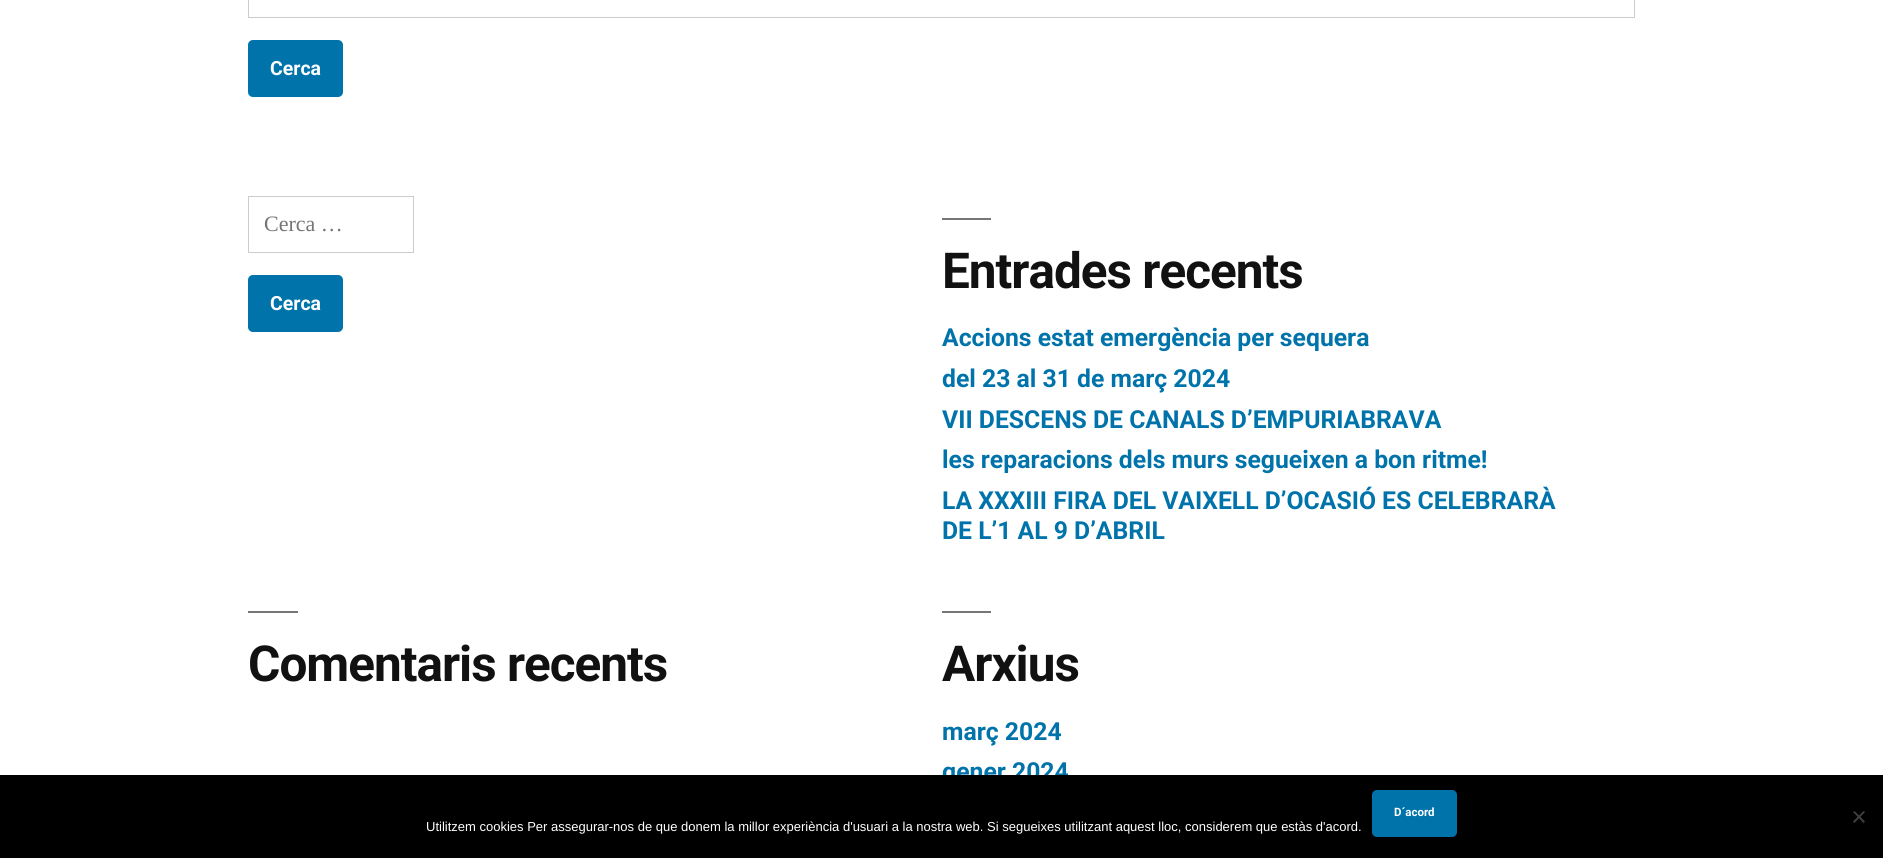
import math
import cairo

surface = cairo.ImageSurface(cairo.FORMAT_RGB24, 1883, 858)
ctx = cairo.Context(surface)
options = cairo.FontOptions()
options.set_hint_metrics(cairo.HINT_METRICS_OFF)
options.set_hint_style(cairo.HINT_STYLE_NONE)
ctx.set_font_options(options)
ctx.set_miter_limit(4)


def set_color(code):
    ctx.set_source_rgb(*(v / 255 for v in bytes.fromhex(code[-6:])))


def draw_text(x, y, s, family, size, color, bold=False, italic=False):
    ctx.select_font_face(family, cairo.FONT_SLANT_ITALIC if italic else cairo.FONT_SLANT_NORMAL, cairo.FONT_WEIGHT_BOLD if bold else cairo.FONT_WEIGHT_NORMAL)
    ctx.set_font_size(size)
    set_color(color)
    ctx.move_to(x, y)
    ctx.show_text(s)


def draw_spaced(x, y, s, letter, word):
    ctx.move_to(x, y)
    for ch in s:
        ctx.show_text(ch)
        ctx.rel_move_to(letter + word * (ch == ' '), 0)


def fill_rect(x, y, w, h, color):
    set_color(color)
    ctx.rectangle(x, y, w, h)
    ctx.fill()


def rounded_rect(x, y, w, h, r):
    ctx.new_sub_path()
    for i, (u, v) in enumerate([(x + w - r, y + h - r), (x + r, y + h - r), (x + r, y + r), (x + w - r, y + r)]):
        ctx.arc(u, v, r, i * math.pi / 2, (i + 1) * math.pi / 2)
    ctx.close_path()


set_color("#ffffff")
ctx.paint()
ctx.rectangle(248.5, -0.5, 1386, 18)
set_color("#cccccc")
ctx.set_line_width(1)
ctx.stroke()
set_color("#0073aa")
rounded_rect(248, 40, 95, 57, 5)
ctx.fill()
draw_text(270, 75, "Cerca", "Roboto", 19.5, "#ffffff", bold=True)
ctx.rectangle(248.5, 196.5, 165, 56)
set_color("#cccccc")
ctx.stroke()
draw_text(264, 231, "Cerca …", "Liberation Serif", 22, "#757575")
set_color("#0073aa")
rounded_rect(248, 275, 95, 57, 5)
ctx.fill()
draw_text(270, 310, "Cerca", "Roboto", 19.5, "#ffffff", bold=True)
fill_rect(942, 218, 49, 2, "#767676")
ctx.set_font_size(49.5)
set_color("#111111")
draw_spaced(942, 288, "Entrades recents", -1, 0)
draw_text(942, 346, "Accions estat emergència per sequera", "Roboto", 24.75, "#0073aa", bold=True)
draw_text(942, 387, "del 23 al 31 de març 2024", "Roboto", 24.75, "#0073aa", bold=True)
draw_text(942, 428, "VII DESCENS DE CANALS D’EMPURIABRAVA", "Roboto", 24.75, "#0073aa", bold=True)
draw_text(942, 468, "les reparacions dels murs segueixen a bon ritme!", "Roboto", 24.75, "#0073aa", bold=True)
draw_text(942, 509, "LA XXXIII FIRA DEL VAIXELL D’OCASIÓ ES CELEBRARÀ", "Roboto", 24.75, "#0073aa", bold=True)
draw_text(942, 539, "DE L’1 AL 9 D’ABRIL", "Roboto", 24.75, "#0073aa", bold=True)
fill_rect(248, 611, 50, 2, "#767676")
ctx.set_font_size(49.5)
set_color("#111111")
draw_spaced(248, 681, "Comentaris recents", -1, 0)
fill_rect(942, 611, 49, 2, "#767676")
set_color("#111111")
draw_spaced(942, 681, "Arxius", -1, 0)
draw_text(942, 740, "març 2024", "Roboto", 24.75, "#0073aa", bold=True)
draw_text(942, 780, "gener 2024", "Roboto", 24.75, "#0073aa", bold=True)
fill_rect(0, 775, 1883, 83, "#000000")
set_color("#0073aa")
rounded_rect(1372, 790, 85, 47, 5)
ctx.fill()
draw_text(1394, 816, "D´acord", "Roboto", 11.5, "#ffffff", bold=True)
set_color("#404040")
ctx.new_path()
ctx.move_to(1863.5, 811)
ctx.line_to(1865, 812)
ctx.line_to(1854.5, 823)
ctx.line_to(1853, 821.5)
ctx.close_path()
ctx.fill()
ctx.new_path()
ctx.move_to(1853, 812)
ctx.line_to(1854.5, 811)
ctx.line_to(1865, 821.5)
ctx.line_to(1863.5, 823)
ctx.close_path()
ctx.fill()
draw_text(426, 831, "Utilitzem cookies Per assegurar-nos de que donem la millor experiència d'usuari a la nostra web. Si segueixes utilitzant aquest lloc, considerem que estàs d'acord.", "Liberation Sans", 13, "#ffffff")
surface.write_to_png("output.png")
